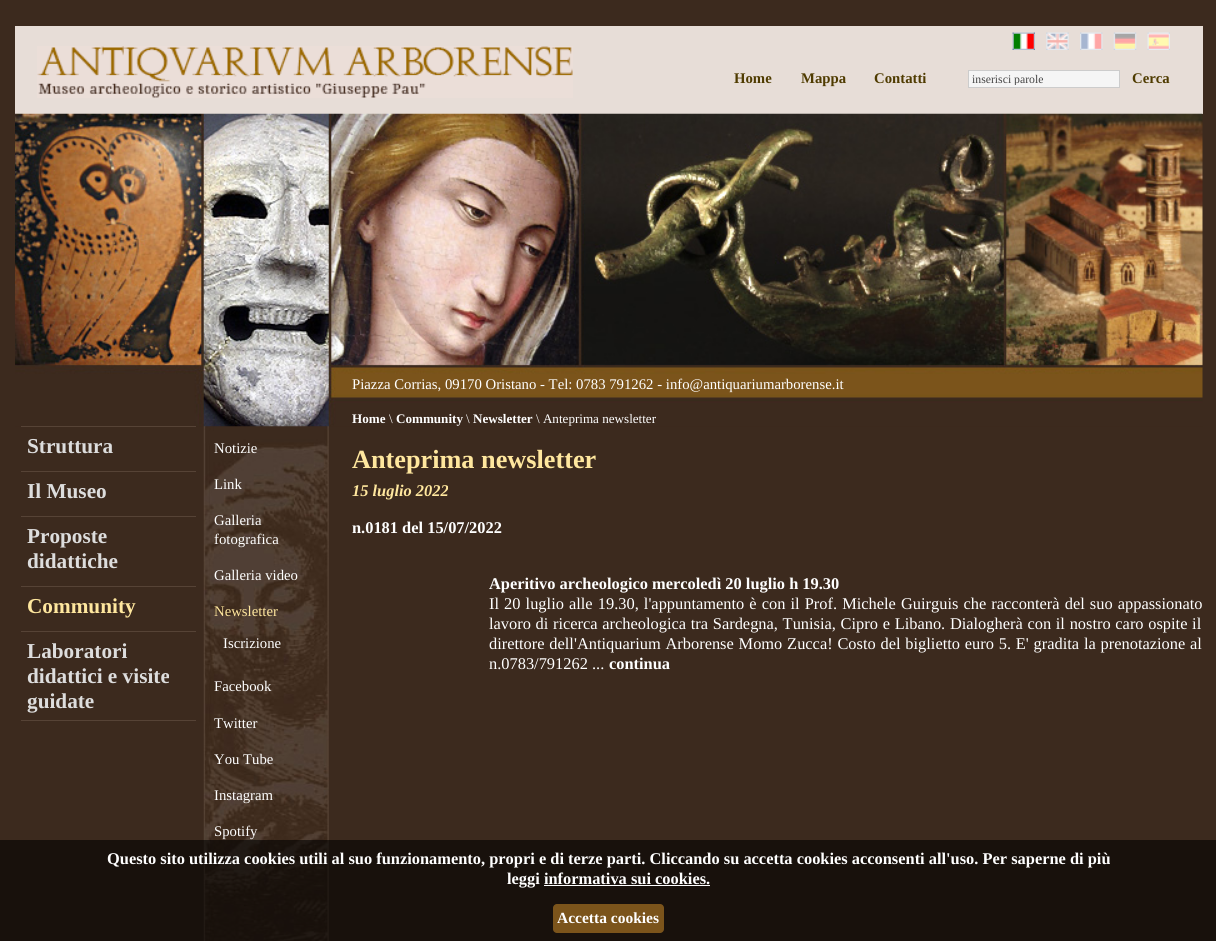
import math
import cairo

surface = cairo.ImageSurface(cairo.FORMAT_RGB24, 1216, 941)
ctx = cairo.Context(surface)
options = cairo.FontOptions()
options.set_hint_metrics(cairo.HINT_METRICS_OFF)
options.set_hint_style(cairo.HINT_STYLE_NONE)
ctx.set_font_options(options)
ctx.set_miter_limit(4)


def set_color(code):
    ctx.set_source_rgb(*(v / 255 for v in bytes.fromhex(code[-6:])))


def draw_text(x, y, s, family, size, color, bold=False, italic=False):
    ctx.select_font_face(family, cairo.FONT_SLANT_ITALIC if italic else cairo.FONT_SLANT_NORMAL, cairo.FONT_WEIGHT_BOLD if bold else cairo.FONT_WEIGHT_NORMAL)
    ctx.set_font_size(size)
    set_color(color)
    ctx.move_to(x, y)
    ctx.show_text(s)


def draw_spaced(x, y, s, letter, word):
    ctx.move_to(x, y)
    for ch in s:
        ctx.show_text(ch)
        ctx.rel_move_to(letter + word * (ch == ' '), 0)


def fill_rect(x, y, w, h, color):
    set_color(color)
    ctx.rectangle(x, y, w, h)
    ctx.fill()


def rounded_rect(x, y, w, h, r):
    ctx.new_sub_path()
    for i, (u, v) in enumerate([(x + w - r, y + h - r), (x + r, y + h - r), (x + r, y + r), (x + w - r, y + r)]):
        ctx.arc(u, v, r, i * math.pi / 2, (i + 1) * math.pi / 2)
    ctx.close_path()


def draw_image(path, x, y, w, h):
    ctx.save()
    ctx.set_source_surface(cairo.ImageSurface.create_from_png(path), x, y)
    ctx.rectangle(x, y, w, h)
    ctx.fill()
    ctx.restore()


set_color("#3c2a1e")
ctx.paint()
fill_rect(15, 26, 1188, 88, "#e7ddd7")
draw_image("assets/img1.png", 37, 46, 536, 52)
draw_image("assets/img2.png", 1012, 32, 23, 18)
draw_image("assets/img3.png", 1046, 32, 23, 18)
draw_image("assets/img4.png", 1080, 32, 23, 18)
draw_image("assets/img5.png", 1113, 32, 24, 18)
draw_image("assets/img6.png", 1147, 32, 23, 18)
draw_text(734, 83, "Home", "Liberation Serif", 14.75, "#4f3b00", bold=True)
draw_text(801, 83, "Mappa", "Liberation Serif", 14.75, "#4f3b00", bold=True)
draw_text(874, 83, "Contatti", "Liberation Serif", 14.75, "#4f3b00", bold=True)
set_color("#f5f5f5")
ctx.rectangle(968.5, 70.5, 151, 17)
ctx.fill_preserve()
set_color("#cccccc")
ctx.set_line_width(1)
ctx.stroke()
ctx.save()
ctx.rectangle(971, 73, 145, 12)
ctx.clip()
draw_text(972, 83, "inserisci parole", "Liberation Serif", 11.75, "#444444")
ctx.restore()
draw_text(1132, 83, "Cerca", "Liberation Serif", 14.75, "#4f3b00", bold=True)
draw_image("assets/img8.png", 203, 426, 126, 515)
draw_image("assets/img7.png", 15, 113, 1188, 314)
draw_text(352, 389, "Piazza Corrias, 09170 Oristano - Tel: 0783 791262 - info@antiquariumarborense.it", "Liberation Serif", 14.75, "#ffffff")
fill_rect(21, 426, 175, 1, "#564336")
draw_text(27, 453, "Struttura", "Liberation Serif", 21.25, "#dddddd", bold=True)
fill_rect(21, 471, 175, 1, "#564336")
draw_text(27, 498, "Il Museo", "Liberation Serif", 21.25, "#dddddd", bold=True)
fill_rect(21, 516, 175, 1, "#564336")
draw_text(27, 543, "Proposte", "Liberation Serif", 21.25, "#dddddd", bold=True)
draw_text(27, 568, "didattiche", "Liberation Serif", 21.25, "#dddddd", bold=True)
fill_rect(21, 586, 175, 1, "#564336")
draw_text(27, 613, "Community", "Liberation Serif", 21.25, "#ffe79e", bold=True)
fill_rect(21, 631, 175, 1, "#564336")
fill_rect(21, 720, 175, 1, "#564336")
draw_text(27, 658, "Laboratori", "Liberation Serif", 21.25, "#dddddd", bold=True)
draw_text(27, 683, "didattici e visite", "Liberation Serif", 21.25, "#dddddd", bold=True)
draw_text(27, 708, "guidate", "Liberation Serif", 21.25, "#dddddd", bold=True)
draw_text(214, 453, "Notizie", "Liberation Serif", 14.75, "#ffffff")
draw_text(214, 489, "Link", "Liberation Serif", 14.75, "#ffffff")
draw_text(214, 525, "Galleria", "Liberation Serif", 14.75, "#ffffff")
draw_text(214, 544, "fotografica", "Liberation Serif", 14.75, "#ffffff")
draw_text(214, 580, "Galleria video", "Liberation Serif", 14.75, "#ffffff")
draw_text(214, 616, "Newsletter", "Liberation Serif", 14.75, "#ffe79e")
draw_text(223, 648, "Iscrizione", "Liberation Serif", 14.75, "#ffffff")
draw_text(214, 691, "Facebook", "Liberation Serif", 14.75, "#ffffff")
draw_text(214, 728, "Twitter", "Liberation Serif", 14.75, "#ffffff")
draw_text(214, 764, "You Tube", "Liberation Serif", 14.75, "#ffffff")
draw_text(214, 800, "Instagram", "Liberation Serif", 14.75, "#ffffff")
draw_text(214, 836, "Spotify", "Liberation Serif", 14.75, "#ffffff")
draw_text(352, 423, "Home", "Liberation Serif", 13.1, "#ffffff", bold=True)
draw_text(389, 423, "\\", "Liberation Serif", 13.1, "#ffffff")
draw_text(396, 423, "Community", "Liberation Serif", 13.1, "#ffffff", bold=True)
draw_text(466, 423, "\\", "Liberation Serif", 13.1, "#ffffff")
draw_text(473, 423, "Newsletter", "Liberation Serif", 13.1, "#ffffff", bold=True)
draw_text(536, 423, "\\ Anteprima newsletter", "Liberation Serif", 13.1, "#ffffff")
draw_text(352, 468, "Anteprima newsletter", "Liberation Serif", 26.25, "#ffe79e", bold=True)
draw_text(352, 496, "15 luglio 2022", "Liberation Serif", 16.4, "#ffe79e", bold=True, italic=True)
draw_text(352, 533, "n.0181 del 15/07/2022", "Liberation Serif", 16.4, "#ffffff", bold=True)
draw_text(489, 589, "Aperitivo archeologico mercoledì 20 luglio h 19.30", "Liberation Serif", 16.4, "#ffffff", bold=True)
ctx.select_font_face("Liberation Serif")
draw_spaced(489, 609, "Il 20 luglio alle 19.30, l'appuntamento è con il Prof. Michele Guirguis che racconterà del suo appassionato", 0, 1)
draw_spaced(489, 629, "lavoro di ricerca archeologica tra Sardegna, Tunisia, Cipro e Libano. Dialogherà con il nostro caro ospite il", 0, 0.6)
draw_spaced(489, 649, "direttore dell'Antiquarium Arborense Momo Zucca! Costo del biglietto euro 5. E' gradita la prenotazione al", 0, 0.7)
draw_text(489, 669, "n.0783/791262 ...", "Liberation Serif", 16.4, "#ffffff")
draw_text(609, 669, "continua", "Liberation Serif", 16.4, "#ffffff", bold=True)
ctx.set_source_rgba(0, 0, 0, 0.6)
ctx.rectangle(0, 840, 1216, 101)
ctx.fill()
draw_text(107, 864, "Questo sito utilizza cookies utili al suo funzionamento, propri e di terze parti. Cliccando su accetta cookies acconsenti all'uso. Per saperne di più", "Liberation Serif", 16.4, "#ffffff", bold=True)
draw_text(507, 884, "leggi informativa sui cookies.", "Liberation Serif", 16.4, "#ffffff", bold=True)
fill_rect(544, 885, 166, 1, "#ffffff")
set_color("#7b541b")
rounded_rect(553, 904, 111, 29, 4)
ctx.fill()
draw_text(557, 923, "Accetta cookies", "Liberation Serif", 15.5, "#ffffff", bold=True)
surface.write_to_png("output.png")
